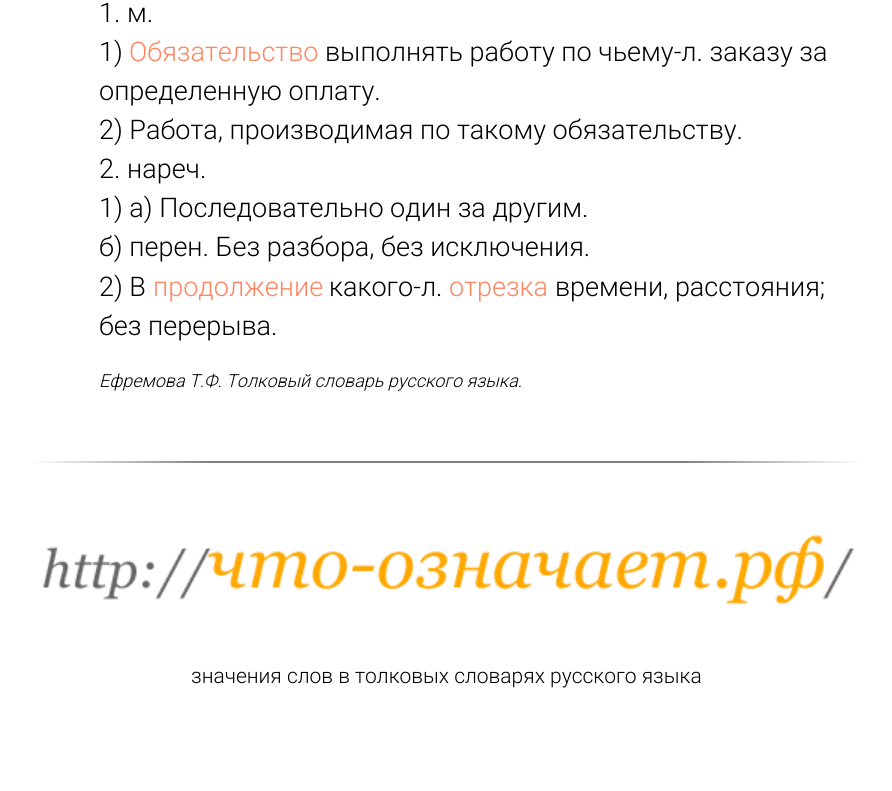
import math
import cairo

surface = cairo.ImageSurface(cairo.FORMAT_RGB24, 892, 791)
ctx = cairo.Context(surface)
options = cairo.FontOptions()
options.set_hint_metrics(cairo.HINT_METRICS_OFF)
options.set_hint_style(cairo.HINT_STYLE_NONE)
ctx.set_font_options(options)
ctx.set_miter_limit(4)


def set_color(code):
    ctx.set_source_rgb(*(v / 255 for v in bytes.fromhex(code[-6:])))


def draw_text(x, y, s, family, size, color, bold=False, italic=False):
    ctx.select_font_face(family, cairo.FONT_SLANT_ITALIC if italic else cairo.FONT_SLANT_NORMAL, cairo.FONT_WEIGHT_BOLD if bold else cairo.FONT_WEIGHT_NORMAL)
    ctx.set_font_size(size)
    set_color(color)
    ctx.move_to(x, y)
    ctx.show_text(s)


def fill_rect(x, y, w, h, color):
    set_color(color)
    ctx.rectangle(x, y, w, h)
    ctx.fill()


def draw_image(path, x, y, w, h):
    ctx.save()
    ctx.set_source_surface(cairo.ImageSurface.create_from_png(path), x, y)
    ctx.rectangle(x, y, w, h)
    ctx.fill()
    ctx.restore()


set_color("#ffffff")
ctx.paint()
draw_text(99, 22, "1. м.", "Roboto Light", 27, "#000000")
draw_text(99, 61, "1)", "Roboto Light", 27, "#000000")
draw_text(129, 61, "Обязательство", "Roboto Light", 27, "#ff8562")
draw_text(325, 61, "выполнять работу по чьему-л. заказу за", "Roboto Light", 27, "#000000")
draw_text(99, 100, "определенную оплату.", "Roboto Light", 27, "#000000")
draw_text(99, 139, "2) Работа, производимая по такому обязательству.", "Roboto Light", 27, "#000000")
draw_text(99, 178, "2. нареч.", "Roboto Light", 27, "#000000")
draw_text(99, 217, "1) а) Последовательно один за другим.", "Roboto Light", 27, "#000000")
draw_text(99, 256, "б) перен. Без разбора, без исключения.", "Roboto Light", 27, "#000000")
draw_text(99, 296, "2) В", "Roboto Light", 27, "#000000")
draw_text(153, 296, "продолжение", "Roboto Light", 27, "#ff8562")
draw_text(329, 296, "какого-л.", "Roboto Light", 27, "#000000")
draw_text(449, 296, "отрезка", "Roboto Light", 27, "#ff8562")
draw_text(555, 296, "времени, расстояния;", "Roboto Light", 27, "#000000")
draw_text(99, 335, "без перерыва.", "Roboto Light", 27, "#000000")
draw_text(99, 387, "Ефремова Т.Ф. Толковый словарь русского языка.", "Roboto Light", 18, "#000000", italic=True)
gradient = cairo.LinearGradient(210, 461, 30, 461)
gradient.add_color_stop_rgba(0, 0.502, 0.502, 0.502, 1)
gradient.add_color_stop_rgba(1, 1, 1, 1, 1)
ctx.set_source(gradient)
ctx.rectangle(30, 461, 180, 2)
ctx.fill()
fill_rect(210, 461, 473, 2, "#808080")
gradient = cairo.LinearGradient(683, 461, 863, 461)
gradient.add_color_stop_rgba(0, 0.502, 0.502, 0.502, 1)
gradient.add_color_stop_rgba(1, 1, 1, 1, 1)
ctx.set_source(gradient)
ctx.rectangle(683, 461, 180, 2)
ctx.fill()
draw_image("assets/img1.png", 43, 534, 811, 71)
draw_text(191, 683, "значения слов в толковых словарях русского языка", "Roboto Light", 21, "#000000")
surface.write_to_png("output.png")
